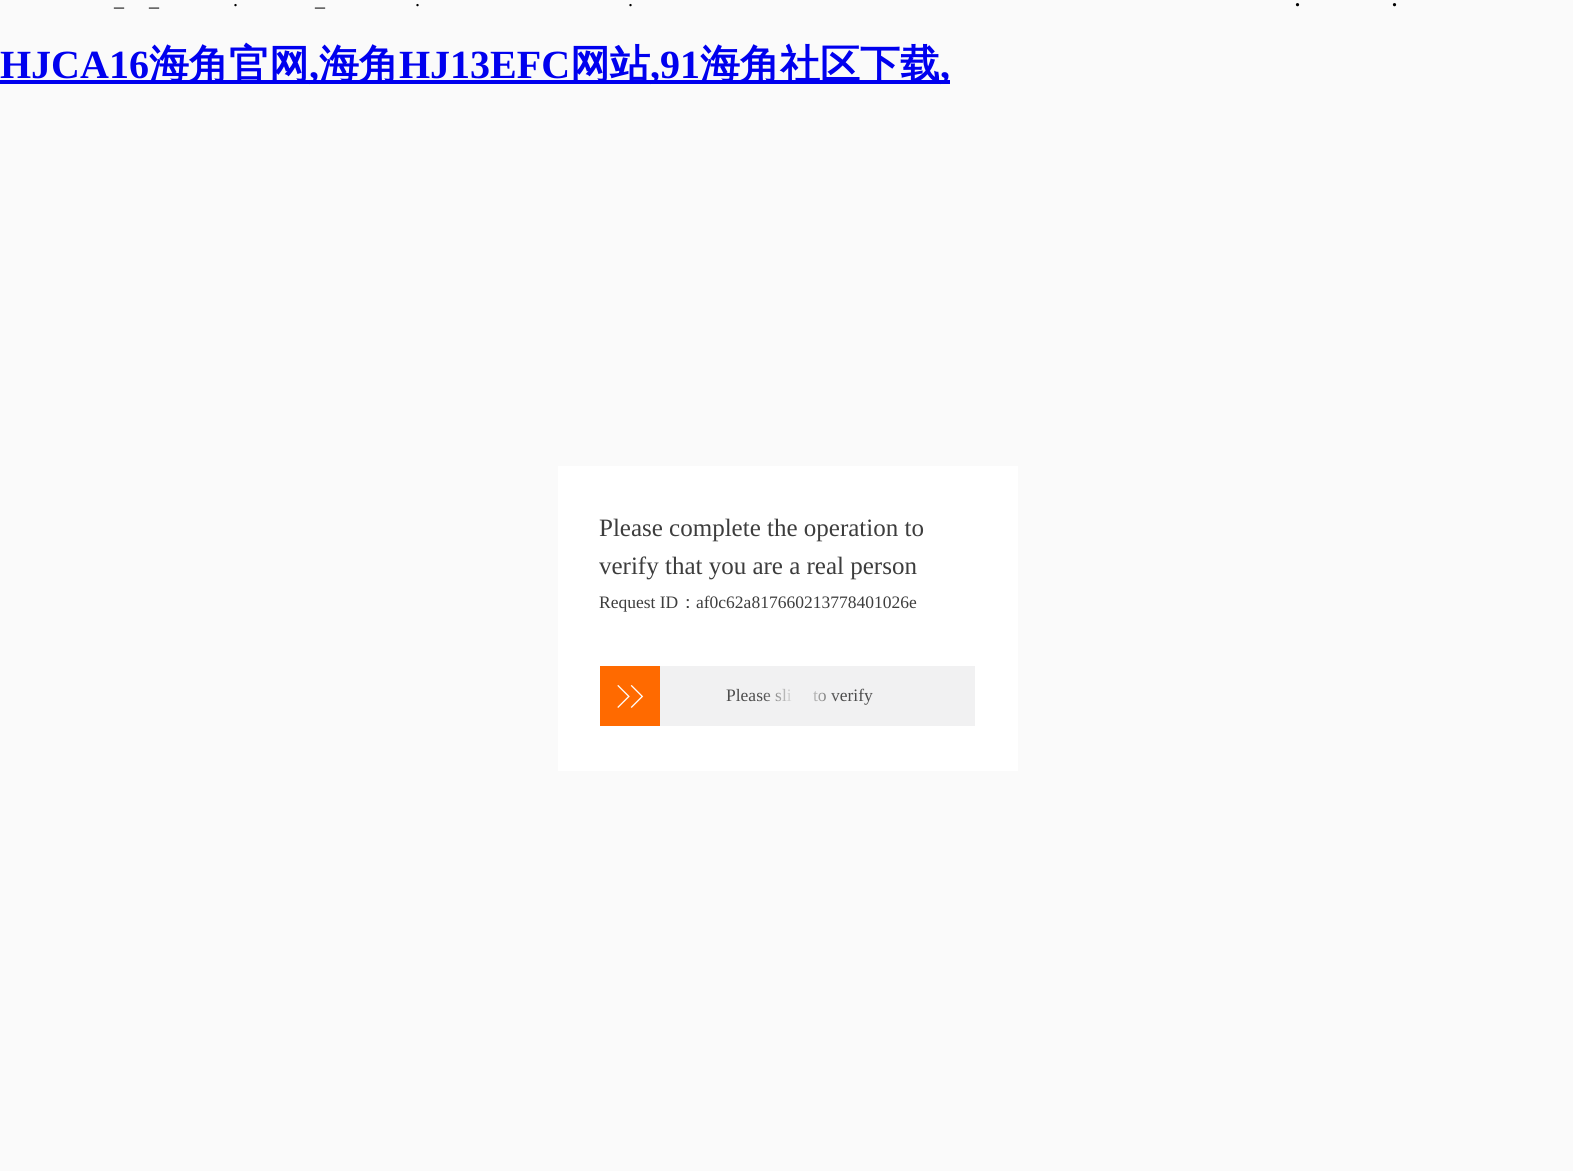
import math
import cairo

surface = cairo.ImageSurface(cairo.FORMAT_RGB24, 1573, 1171)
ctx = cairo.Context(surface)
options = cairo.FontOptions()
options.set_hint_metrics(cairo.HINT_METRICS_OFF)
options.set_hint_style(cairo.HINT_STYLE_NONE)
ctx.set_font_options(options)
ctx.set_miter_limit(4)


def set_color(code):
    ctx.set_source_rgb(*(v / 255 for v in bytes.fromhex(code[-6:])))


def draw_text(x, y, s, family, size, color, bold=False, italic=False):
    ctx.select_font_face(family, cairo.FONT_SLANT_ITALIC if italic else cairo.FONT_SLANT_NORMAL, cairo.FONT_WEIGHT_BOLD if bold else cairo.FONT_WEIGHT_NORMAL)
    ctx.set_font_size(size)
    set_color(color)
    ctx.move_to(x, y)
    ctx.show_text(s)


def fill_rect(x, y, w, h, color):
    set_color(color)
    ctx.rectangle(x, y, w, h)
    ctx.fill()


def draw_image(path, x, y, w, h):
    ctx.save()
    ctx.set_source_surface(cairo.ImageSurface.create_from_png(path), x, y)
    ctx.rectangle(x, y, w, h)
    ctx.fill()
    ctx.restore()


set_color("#fafafa")
ctx.paint()
draw_text(233, 6, ".", "Liberation Serif", 20, "#000000")
draw_text(415, 6, ".", "Liberation Serif", 20, "#000000")
draw_text(628, 6, ".", "Liberation Serif", 20, "#000000")
draw_text(1295, 6, ".", "Liberation Serif", 20, "#000000", bold=True)
draw_text(1392, 6, ".", "Liberation Serif", 20, "#000000", bold=True)
draw_text(114, 6, "_", "Liberation Serif", 20, "#000000")
draw_text(149, 6, "_", "Liberation Serif", 20, "#000000")
draw_text(315, 6, "_", "Liberation Serif", 20, "#000000")
draw_text(0, 78, "HJCA16", "Liberation Serif", 40, "#0000ee", bold=True)
fill_rect(0, 80, 950, 4, "#0000ee")
draw_text(149, 78, "海角官网", "WenQuanYi Zen Hei", 40, "#0000ee", bold=True)
draw_text(309, 78, ",", "Liberation Serif", 40, "#0000ee", bold=True)
draw_text(319, 78, "海角", "WenQuanYi Zen Hei", 40, "#0000ee", bold=True)
draw_text(399, 78, "HJ13EFC", "Liberation Serif", 40, "#0000ee", bold=True)
draw_text(570, 78, "网站", "WenQuanYi Zen Hei", 40, "#0000ee", bold=True)
draw_text(650, 78, ",91", "Liberation Serif", 40, "#0000ee", bold=True)
draw_text(700, 78, "海角社区下载", "WenQuanYi Zen Hei", 40, "#0000ee", bold=True)
draw_text(940, 78, ",", "Liberation Serif", 40, "#0000ee", bold=True)
fill_rect(558, 466, 460, 305, "#ffffff")
draw_text(599, 536, "Please complete the operation to", "Liberation Serif", 25, "#3d3d3d")
draw_text(599, 574, "verify that you are a real person", "Liberation Serif", 25, "#3d3d3d")
draw_text(599, 608, "Request ID", "Liberation Serif", 17.5, "#3d3d3d")
draw_text(679, 608, "：", "WenQuanYi Zen Hei Medium", 17.5, "#3d3d3d")
draw_text(696, 608, "af0c62a817660213778401026e", "Liberation Serif", 17.5, "#3d3d3d")
fill_rect(660, 666, 315, 60, "#f1f1f2")
fill_rect(600, 666, 60, 60, "#ff6a00")
draw_image("assets/img1.png", 617, 685, 27, 23)
gradient = cairo.LinearGradient(612, 666, 987, 666)
gradient.add_color_stop_rgba(0, 0.302, 0.302, 0.302, 1)
gradient.add_color_stop_rgba(0.4, 0.302, 0.302, 0.302, 1)
gradient.add_color_stop_rgba(0.5, 1, 1, 1, 1)
gradient.add_color_stop_rgba(0.6, 0.302, 0.302, 0.302, 1)
gradient.add_color_stop_rgba(1, 0.302, 0.302, 0.302, 1)
ctx.set_source(gradient)
ctx.move_to(726, 701)
ctx.show_text("Please sli")
ctx.move_to(813, 701)
ctx.show_text("to verify")
surface.write_to_png("output.png")
